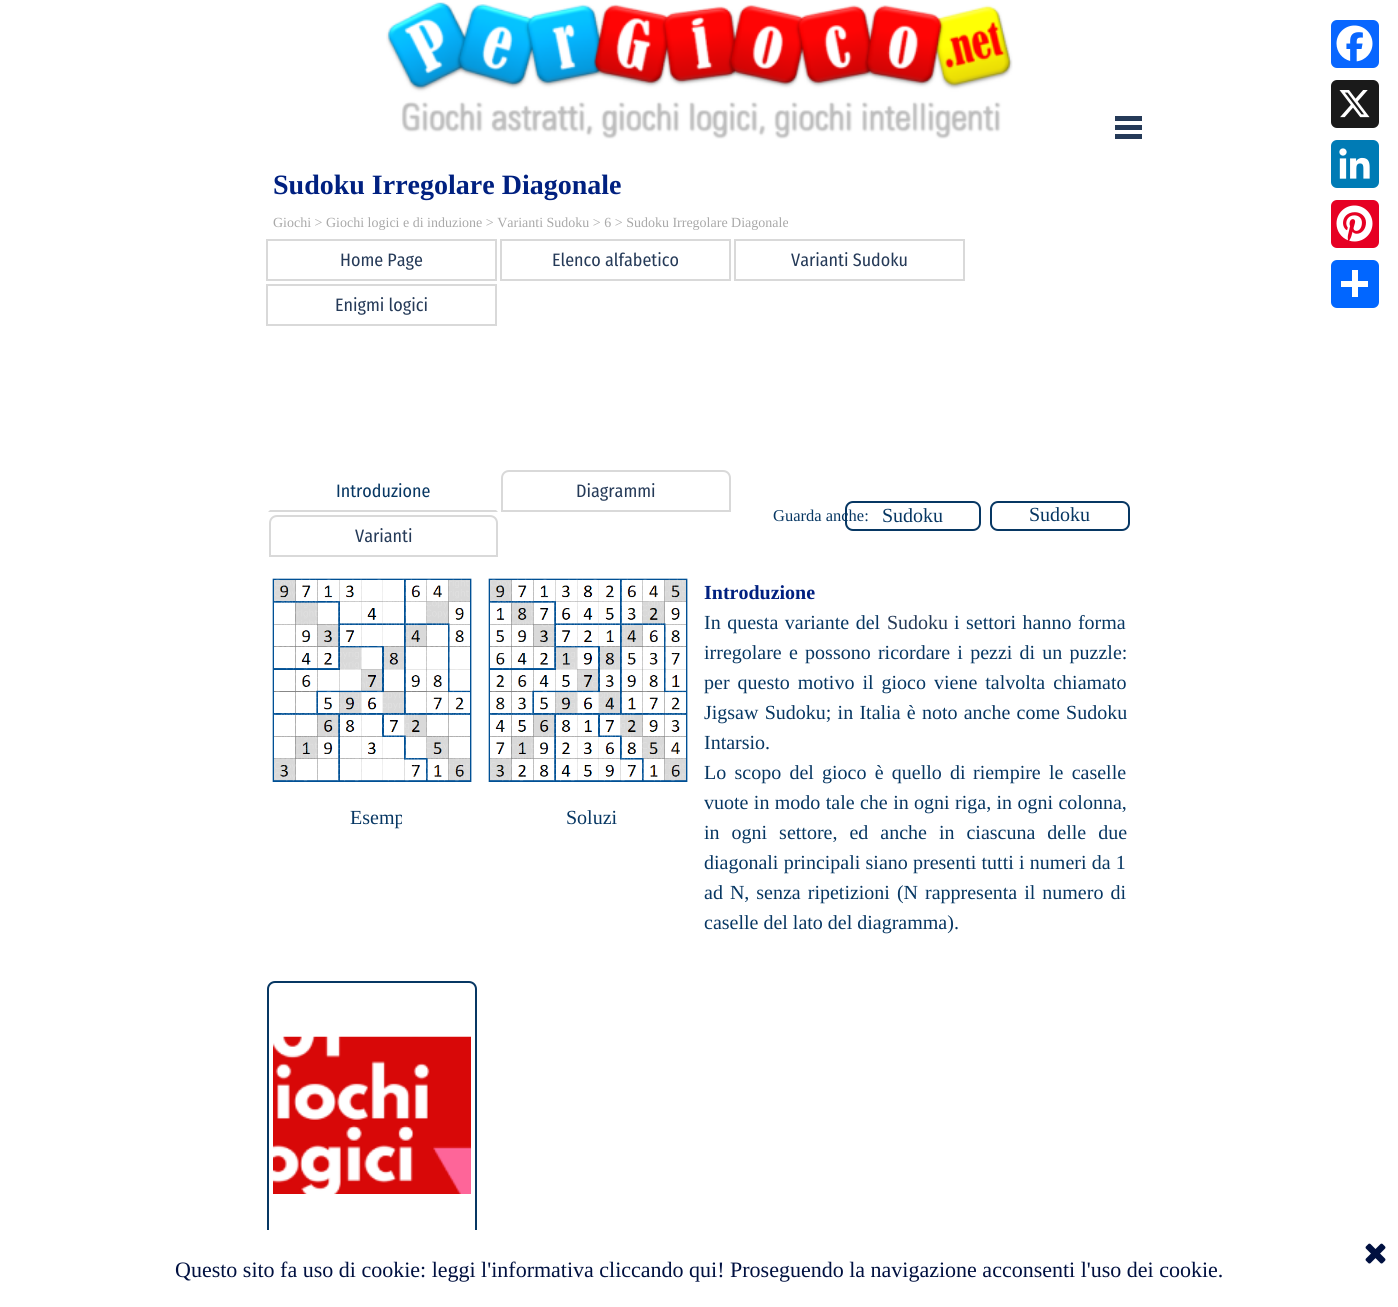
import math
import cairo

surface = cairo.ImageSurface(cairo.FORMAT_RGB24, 1398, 1307)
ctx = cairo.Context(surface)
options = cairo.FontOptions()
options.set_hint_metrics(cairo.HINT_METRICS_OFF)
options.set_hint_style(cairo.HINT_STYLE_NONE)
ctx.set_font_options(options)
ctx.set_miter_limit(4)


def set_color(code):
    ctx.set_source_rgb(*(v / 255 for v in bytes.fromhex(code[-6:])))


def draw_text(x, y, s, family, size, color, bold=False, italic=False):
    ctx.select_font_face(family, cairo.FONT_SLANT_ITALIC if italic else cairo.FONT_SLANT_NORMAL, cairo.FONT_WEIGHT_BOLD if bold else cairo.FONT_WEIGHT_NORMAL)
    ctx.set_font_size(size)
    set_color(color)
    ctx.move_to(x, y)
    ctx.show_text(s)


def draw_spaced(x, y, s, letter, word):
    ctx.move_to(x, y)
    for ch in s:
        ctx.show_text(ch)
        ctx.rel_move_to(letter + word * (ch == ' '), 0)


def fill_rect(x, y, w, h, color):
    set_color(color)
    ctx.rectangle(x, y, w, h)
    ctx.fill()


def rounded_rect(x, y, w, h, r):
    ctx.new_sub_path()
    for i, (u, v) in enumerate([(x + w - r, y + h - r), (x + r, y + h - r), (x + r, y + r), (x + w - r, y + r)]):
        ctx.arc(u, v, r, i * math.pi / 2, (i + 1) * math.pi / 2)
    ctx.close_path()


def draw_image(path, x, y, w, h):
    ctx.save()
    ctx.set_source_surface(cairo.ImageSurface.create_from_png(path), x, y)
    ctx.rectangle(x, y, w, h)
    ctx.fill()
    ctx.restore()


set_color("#ffffff")
ctx.paint()
draw_image("assets/img1.png", 386, 2, 627, 137)
fill_rect(1115, 116, 27, 5, "#253a58")
fill_rect(1115, 125, 27, 5, "#253a58")
fill_rect(1115, 134, 27, 5, "#253a58")
draw_text(273, 194, "Sudoku Irregolare Diagonale", "Liberation Serif", 28, "#002080", bold=True)
draw_text(273, 227, "Giochi > Giochi logici e di induzione > Varianti Sudoku > 6 > Sudoku Irregolare Diagonale", "Liberation Serif", 14, "#a9a9a9")
ctx.rectangle(267, 240, 229, 40)
set_color("#d9d9d9")
ctx.stroke()
draw_text(340, 266, "Home Page", "Fira Sans Condensed", 18, "#253a58")
ctx.rectangle(501, 240, 229, 40)
set_color("#d9d9d9")
ctx.stroke()
draw_text(552, 266, "Elenco alfabetico", "Fira Sans Condensed", 18, "#253a58")
ctx.rectangle(735, 240, 229, 40)
set_color("#d9d9d9")
ctx.stroke()
draw_text(791, 266, "Varianti Sudoku", "Fira Sans Condensed", 18, "#253a58")
ctx.rectangle(267, 285, 229, 40)
set_color("#d9d9d9")
ctx.stroke()
draw_text(335, 311, "Enigmi logici", "Fira Sans Condensed", 18, "#253a58")
set_color("#d9d9d9")
ctx.new_path()
ctx.move_to(498, 512)
ctx.line_to(496, 510)
ctx.line_to(270, 510)
ctx.line_to(268, 512)
ctx.close_path()
ctx.fill()
draw_text(336, 497, "Introduzione", "Fira Sans Condensed", 18, "#073763")
ctx.new_path()
ctx.move_to(509, 471)
ctx.line_to(723, 471)
ctx.curve_to(727, 471, 730, 474, 730, 478)
ctx.line_to(730, 511)
ctx.line_to(502, 511)
ctx.line_to(502, 478)
ctx.curve_to(502, 474, 505, 471, 509, 471)
ctx.close_path()
set_color("#d9d9d9")
ctx.stroke()
draw_text(576, 497, "Diagrammi", "Fira Sans Condensed", 18, "#253a58")
ctx.new_path()
ctx.move_to(277, 516)
ctx.line_to(490, 516)
ctx.curve_to(494, 516, 497, 519, 497, 523)
ctx.line_to(497, 556)
ctx.line_to(270, 556)
ctx.line_to(270, 523)
ctx.curve_to(270, 519, 273, 516, 277, 516)
ctx.close_path()
set_color("#d9d9d9")
ctx.stroke()
draw_text(355, 542, "Varianti", "Fira Sans Condensed", 18, "#253a58")
draw_text(773, 521, "Guarda anche:", "Liberation Serif", 16.5, "#073763")
rounded_rect(846, 502, 134, 28, 7)
ctx.stroke()
draw_text(882, 522, "Sudoku", "Liberation Serif", 20, "#073763")
rounded_rect(991, 502, 138, 28, 7)
ctx.stroke()
draw_text(1029, 521, "Sudoku", "Liberation Serif", 20, "#073763")
draw_image("assets/img2.png", 272, 578, 200, 204)
ctx.save()
ctx.rectangle(342, 798, 60, 39)
ctx.clip()
draw_text(350, 824, "Esemp", "Liberation Serif", 20, "#073763")
ctx.restore()
draw_image("assets/img3.png", 488, 578, 200, 204)
draw_text(566, 824, "Soluzi", "Liberation Serif", 20, "#073763")
draw_text(704, 599, "Introduzione", "Liberation Serif", 20, "#002080", bold=True)
ctx.select_font_face("Liberation Serif")
set_color("#073763")
draw_spaced(704, 629, "In questa variante del", 0, 1.5)
draw_text(887, 629, "Sudoku", "Liberation Serif", 20, "#253a58")
set_color("#073763")
draw_spaced(954, 629, "i settori hanno forma", 0, 1.5)
draw_spaced(704, 659, "irregolare e possono ricordare i pezzi di un puzzle:", 0, 2.25)
draw_spaced(704, 689, "per questo motivo il gioco viene talvolta chiamato", 0, 3)
draw_spaced(704, 719, "Jigsaw Sudoku; in Italia è noto anche come Sudoku", 0, 1.25)
draw_text(704, 749, "Intarsio.", "Liberation Serif", 20, "#073763")
draw_spaced(704, 779, "Lo scopo del gioco è quello di", 0, 3.25)
draw_spaced(973, 779, "riempire le caselle", 0, 3.25)
draw_spaced(704, 809, "vuote in modo tale che in ogni riga, in ogni colonna,", 0, 0.4)
draw_spaced(704, 839, "in ogni settore, ed anche in ciascuna delle due", 0, 7)
draw_spaced(704, 869, "diagonali principali siano presenti tutti i numeri da 1", 0, 0.25)
draw_spaced(704, 899, "ad N, senza ripetizioni (N rappresenta il numero di", 0, 2)
draw_text(704, 929, "caselle del lato del diagramma).", "Liberation Serif", 20, "#073763")
rounded_rect(268, 982, 208, 267, 7)
ctx.stroke()
draw_image("assets/img4.png", 273, 1036, 198, 158)
set_color("#0866ff")
rounded_rect(1331, 20, 48, 48, 6)
ctx.fill()
draw_image("assets/img5.png", 1336, 25, 37, 37)
set_color("#1a1a1a")
rounded_rect(1331, 80, 48, 48, 6)
ctx.fill()
draw_image("assets/img6.png", 1339, 90, 31, 28)
set_color("#007bb5")
rounded_rect(1331, 140, 48, 48, 6)
ctx.fill()
draw_image("assets/img7.png", 1339, 148, 31, 31)
set_color("#e60023")
rounded_rect(1331, 200, 48, 48, 6)
ctx.fill()
draw_image("assets/img8.png", 1336, 205, 37, 37)
set_color("#0166ff")
rounded_rect(1331, 260, 48, 48, 6)
ctx.fill()
fill_rect(1352, 270, 6, 27, "#ffffff")
fill_rect(1341, 281, 27, 6, "#ffffff")
fill_rect(267, 1230, 210, 20, "#ffffff")
draw_image("assets/img9.png", 1365, 1243, 21, 21)
draw_text(175, 1277, "Questo sito fa uso di cookie: leggi l'informativa cliccando qui! Proseguendo la navigazione acconsenti l'uso dei cookie.", "Liberation Serif", 22, "#001040")
surface.write_to_png("output.png")
